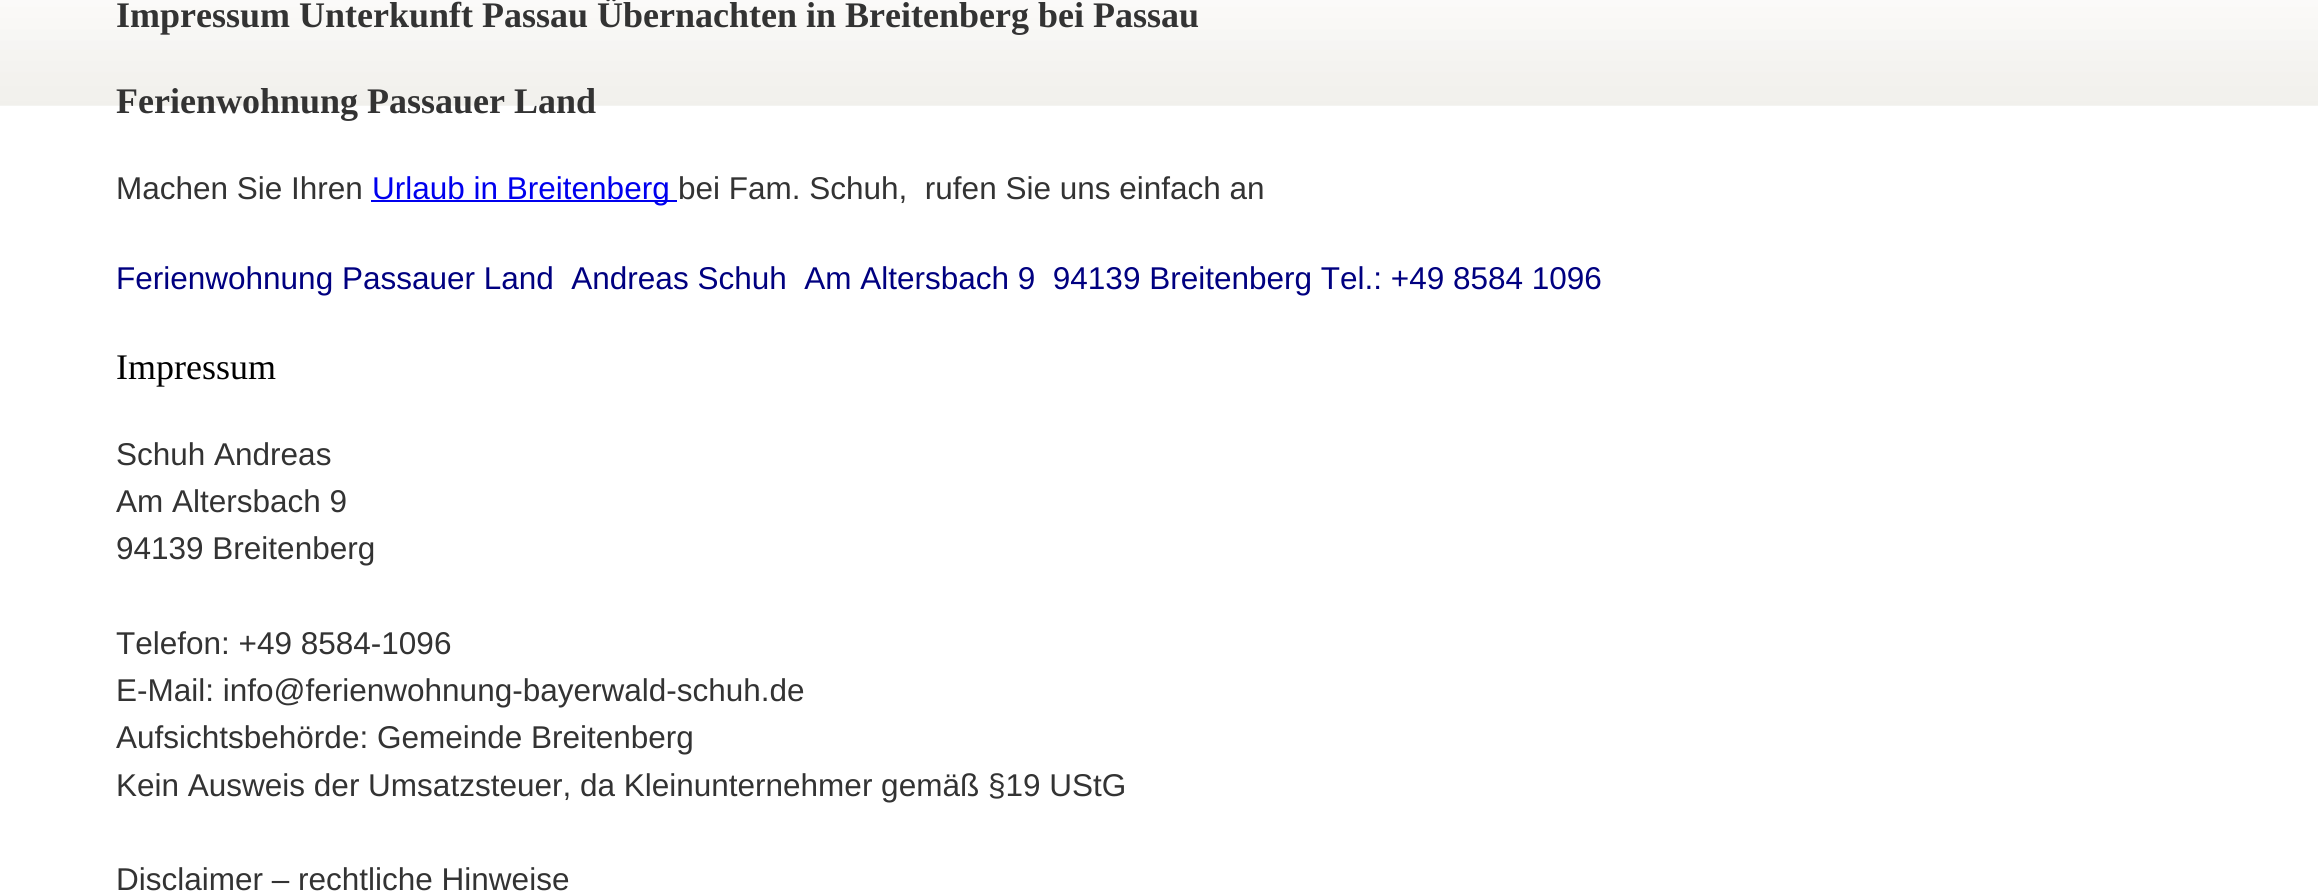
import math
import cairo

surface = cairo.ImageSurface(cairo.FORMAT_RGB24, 2318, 894)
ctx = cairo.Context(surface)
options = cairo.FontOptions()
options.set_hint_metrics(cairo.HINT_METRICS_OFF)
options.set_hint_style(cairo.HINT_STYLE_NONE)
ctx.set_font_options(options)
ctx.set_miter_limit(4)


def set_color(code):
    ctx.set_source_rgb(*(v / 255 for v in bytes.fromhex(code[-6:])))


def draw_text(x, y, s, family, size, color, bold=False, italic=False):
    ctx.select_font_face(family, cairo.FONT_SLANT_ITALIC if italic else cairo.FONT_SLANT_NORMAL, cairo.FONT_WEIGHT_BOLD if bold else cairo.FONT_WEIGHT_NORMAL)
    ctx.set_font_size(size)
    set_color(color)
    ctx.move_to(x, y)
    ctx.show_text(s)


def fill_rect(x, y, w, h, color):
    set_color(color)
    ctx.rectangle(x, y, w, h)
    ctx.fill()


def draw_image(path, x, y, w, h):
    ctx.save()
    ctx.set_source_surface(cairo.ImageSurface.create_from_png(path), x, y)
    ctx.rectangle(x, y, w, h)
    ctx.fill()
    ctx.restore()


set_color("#ffffff")
ctx.paint()
draw_image("assets/img1.png", 0, 0, 2318, 106)
draw_text(116, 27, "Impressum Unterkunft Passau Übernachten in Breitenberg bei Passau", "Liberation Serif", 36, "#333333", bold=True)
draw_text(116, 113, "Ferienwohnung Passauer Land", "Liberation Serif", 36, "#333333", bold=True)
draw_text(116, 199, "Machen Sie Ihren", "Liberation Sans", 31.5, "#333333")
fill_rect(371, 200, 306, 2, "#0000ee")
draw_text(372, 199, "Urlaub in Breitenberg", "Liberation Sans", 31.5, "#0000ee")
draw_text(678, 199, "bei Fam. Schuh,  rufen Sie uns einfach an", "Liberation Sans", 31.5, "#333333")
draw_text(116, 289, "Ferienwohnung Passauer Land  Andreas Schuh  Am Altersbach 9  94139 Breitenberg Tel.: +49 8584 1096", "Liberation Sans", 31.5, "#000080")
draw_text(116, 379, "Impressum", "Liberation Serif", 36, "#000000")
draw_text(116, 465, "Schuh Andreas", "Liberation Sans", 31.5, "#333333")
draw_text(116, 512, "Am Altersbach 9", "Liberation Sans", 31.5, "#333333")
draw_text(116, 559, "94139 Breitenberg", "Liberation Sans", 31.5, "#333333")
draw_text(116, 654, "Telefon: +49 8584-1096", "Liberation Sans", 31.5, "#333333")
draw_text(116, 701, "E-Mail: info@ferienwohnung-bayerwald-schuh.de", "Liberation Sans", 31.5, "#333333")
draw_text(116, 748, "Aufsichtsbehörde: Gemeinde Breitenberg", "Liberation Sans", 31.5, "#333333")
draw_text(116, 796, "Kein Ausweis der Umsatzsteuer, da Kleinunternehmer gemäß §19 UStG", "Liberation Sans", 31.5, "#333333")
draw_text(116, 890, "Disclaimer – rechtliche Hinweise", "Liberation Sans", 31.5, "#333333")
surface.write_to_png("output.png")
